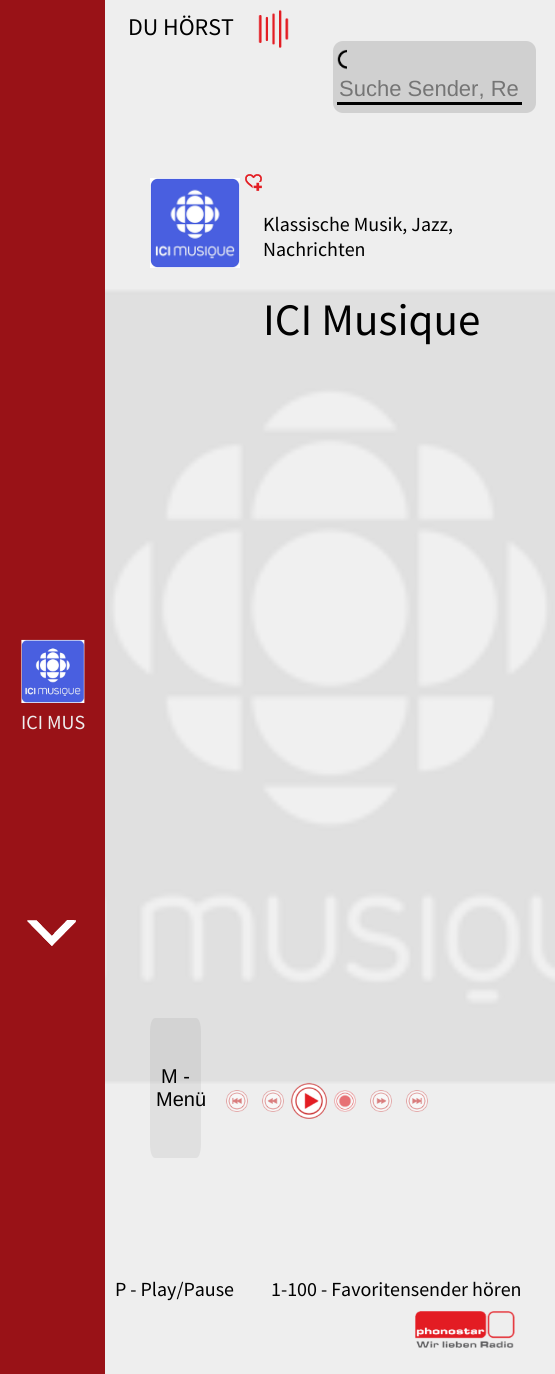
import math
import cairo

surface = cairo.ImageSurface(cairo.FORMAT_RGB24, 555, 1374)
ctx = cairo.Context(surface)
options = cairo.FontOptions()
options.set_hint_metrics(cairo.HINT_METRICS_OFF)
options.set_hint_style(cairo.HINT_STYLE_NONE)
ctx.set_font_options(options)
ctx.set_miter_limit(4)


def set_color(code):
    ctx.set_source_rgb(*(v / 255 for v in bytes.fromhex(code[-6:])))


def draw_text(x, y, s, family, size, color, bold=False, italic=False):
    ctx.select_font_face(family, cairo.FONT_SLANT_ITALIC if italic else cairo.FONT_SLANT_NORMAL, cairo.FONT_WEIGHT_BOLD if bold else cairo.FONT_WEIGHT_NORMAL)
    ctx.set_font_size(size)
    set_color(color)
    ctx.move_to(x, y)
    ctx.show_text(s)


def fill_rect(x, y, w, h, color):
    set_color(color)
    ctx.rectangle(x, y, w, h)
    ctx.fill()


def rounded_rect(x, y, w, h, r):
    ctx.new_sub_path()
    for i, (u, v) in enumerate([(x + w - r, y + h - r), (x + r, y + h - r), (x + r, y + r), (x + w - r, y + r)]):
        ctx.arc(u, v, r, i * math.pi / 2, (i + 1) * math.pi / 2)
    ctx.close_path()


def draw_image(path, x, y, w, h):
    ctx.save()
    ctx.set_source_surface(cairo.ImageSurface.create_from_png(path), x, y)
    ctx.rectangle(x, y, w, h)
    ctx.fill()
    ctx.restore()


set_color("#eeeeee")
ctx.paint()
draw_text(128, 35, "DU HÖRST", "Source Sans Pro", 24, "#000000")
draw_image("assets/img1.png", 258, 9, 31, 39)
set_color("#d0d0d0")
rounded_rect(333, 41, 203, 72, 10)
ctx.fill()
draw_image("assets/img2.png", 337, 49, 10, 21)
fill_rect(337, 102, 185, 3, "#000000")
draw_text(339, 96, "Suche Sender, Re", "Liberation Sans", 22, "#757575")
fill_rect(0, 0, 105, 1374, "#991217")
draw_image("assets/img3.png", 21, 639, 64, 64)
ctx.save()
ctx.rectangle(21, 640, 63, 94)
ctx.clip()
draw_text(21, 729, "ICI MUS", "Source Sans Pro", 20, "#eeeeee")
ctx.restore()
draw_image("assets/img4.png", 27, 920, 49, 26)
draw_image("assets/img5.png", 150, 178, 90, 90)
draw_image("assets/img6.png", 245, 174, 17, 17)
draw_text(263, 231, "Klassische Musik, Jazz,", "Source Sans Pro", 20, "#000000")
draw_text(263, 256, "Nachrichten", "Source Sans Pro", 20, "#000000")
draw_image("assets/img13.png", 105, 289, 450, 795)
draw_text(263, 335, "ICI Musique", "Source Sans Pro", 45, "#000000")
ctx.set_source_rgba(0, 0, 0, 0.06)
ctx.new_path()
ctx.move_to(155, 1018)
ctx.line_to(196, 1018)
ctx.curve_to(199, 1018, 201, 1024, 201, 1032)
ctx.line_to(201, 1144)
ctx.curve_to(201, 1152, 199, 1158, 196, 1158)
ctx.line_to(155, 1158)
ctx.curve_to(152, 1158, 150, 1152, 150, 1144)
ctx.line_to(150, 1032)
ctx.curve_to(150, 1024, 152, 1018, 155, 1018)
ctx.close_path()
ctx.fill()
draw_text(161, 1083, "M -", "Liberation Sans", 20, "#000000")
draw_text(156, 1106, "Menü", "Liberation Sans", 20, "#000000")
draw_image("assets/img7.png", 226, 1090, 22, 22)
draw_image("assets/img8.png", 262, 1090, 22, 22)
draw_image("assets/img9.png", 290, 1082, 37, 37)
draw_image("assets/img10.png", 334, 1090, 22, 22)
draw_image("assets/img11.png", 370, 1090, 22, 22)
draw_image("assets/img12.png", 406, 1090, 22, 22)
draw_text(115, 1296, "P - Play/Pause", "Source Sans Pro", 20, "#000000")
draw_text(271, 1296, "1-100 - Favoritensender hören", "Source Sans Pro", 20, "#000000")
draw_image("assets/img14.png", 415, 1311, 100, 37)
surface.write_to_png("output.png")
